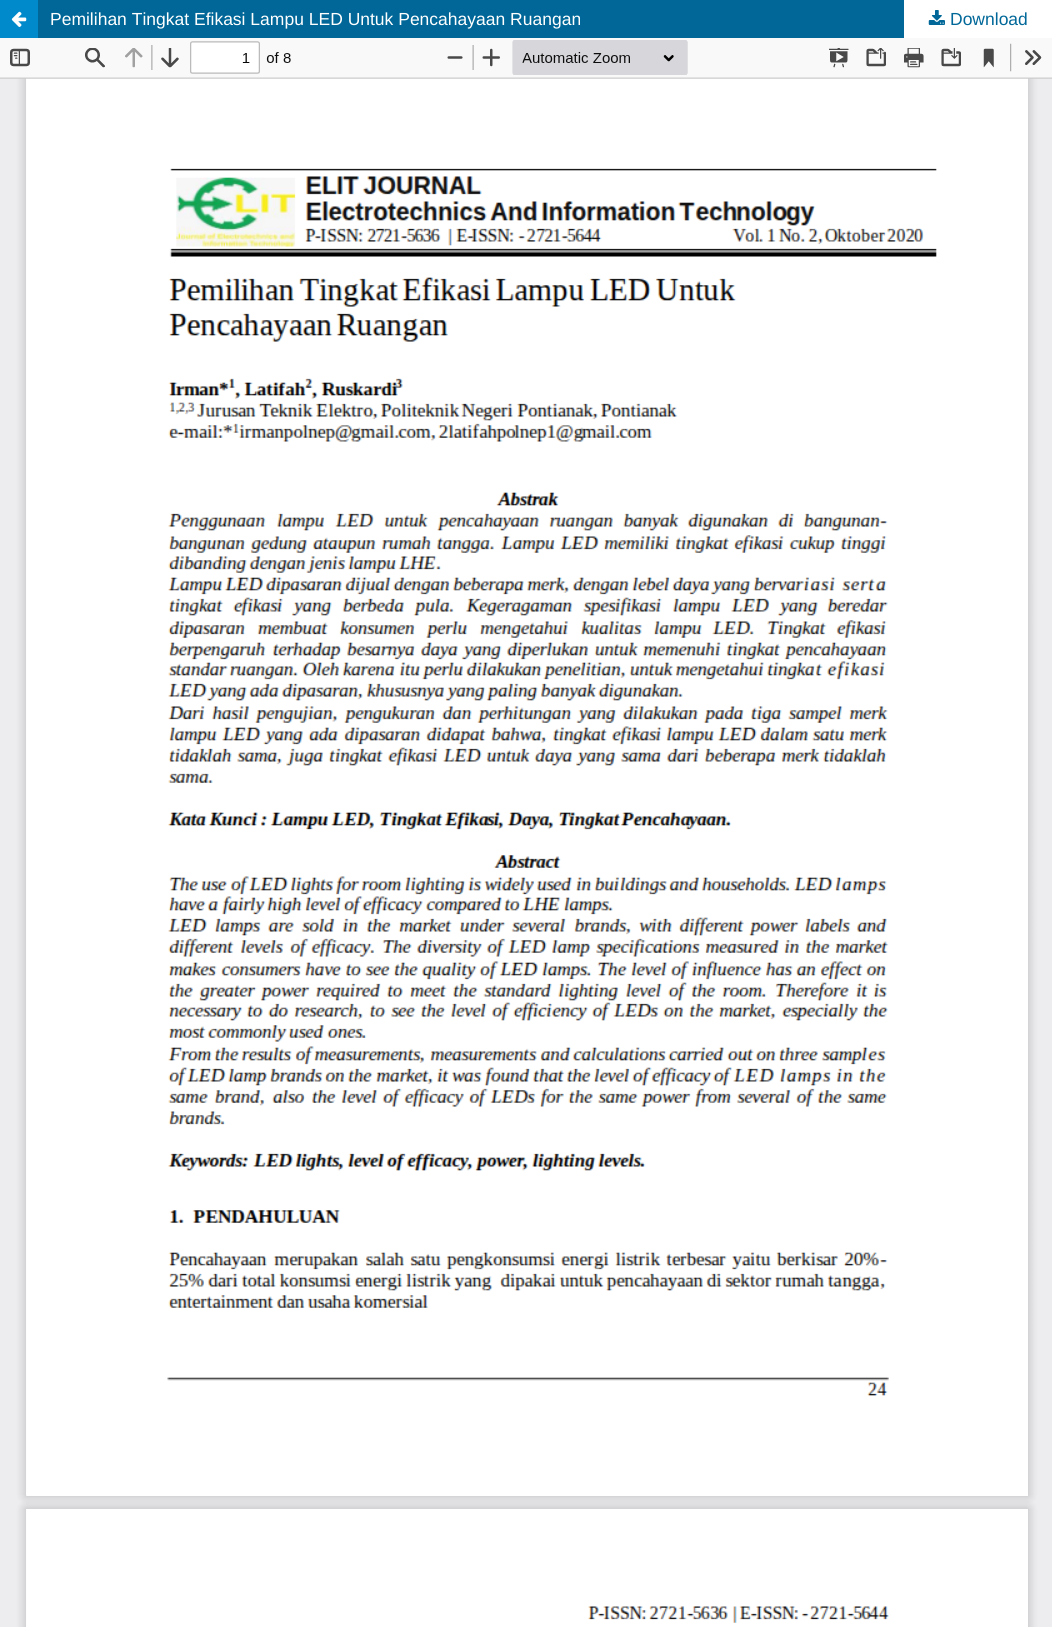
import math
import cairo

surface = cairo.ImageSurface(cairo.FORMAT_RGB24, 1052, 1627)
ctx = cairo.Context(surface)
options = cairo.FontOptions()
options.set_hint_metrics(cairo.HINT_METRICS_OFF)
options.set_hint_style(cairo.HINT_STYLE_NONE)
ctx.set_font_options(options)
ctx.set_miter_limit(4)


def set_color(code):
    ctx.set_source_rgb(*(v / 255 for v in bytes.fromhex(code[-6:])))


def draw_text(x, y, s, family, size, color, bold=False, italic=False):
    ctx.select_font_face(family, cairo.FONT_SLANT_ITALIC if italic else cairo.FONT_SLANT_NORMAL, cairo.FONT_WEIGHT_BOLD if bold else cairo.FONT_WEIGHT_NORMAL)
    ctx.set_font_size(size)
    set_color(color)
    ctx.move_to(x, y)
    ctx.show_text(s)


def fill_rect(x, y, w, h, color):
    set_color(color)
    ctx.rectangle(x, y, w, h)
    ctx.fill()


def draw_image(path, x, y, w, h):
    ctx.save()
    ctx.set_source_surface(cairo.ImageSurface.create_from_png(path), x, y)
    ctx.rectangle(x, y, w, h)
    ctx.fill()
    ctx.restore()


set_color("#ffffff")
ctx.paint()
fill_rect(38, 0, 866, 38, "#006798")
fill_rect(0, 0, 38, 38, "#008acb")
draw_image("assets/img1.png", 11, 11, 16, 16)
draw_text(50, 25, "Pemilihan Tingkat Efikasi Lampu LED Untuk Pencahayaan Ruangan", "Liberation Sans", 17.5, "#ffffff")
draw_image("assets/img2.png", 928, 10, 17, 15)
draw_text(950, 25, "Download", "Liberation Sans", 17.5, "#006798")
draw_image("assets/img3.png", 0, 38, 1052, 1589)
surface.write_to_png("output.png")
